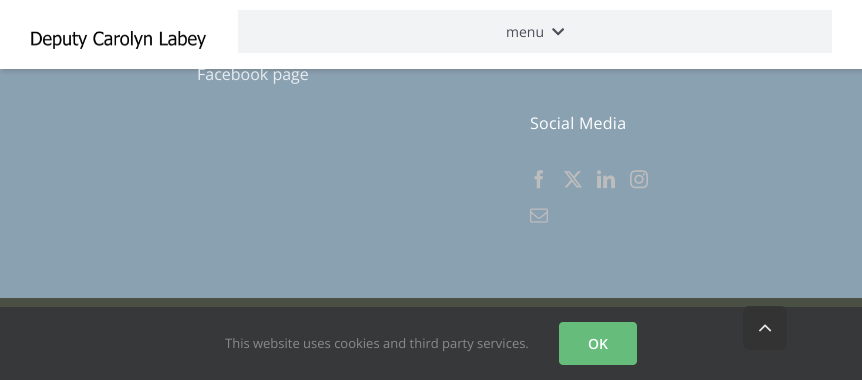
import math
import cairo

surface = cairo.ImageSurface(cairo.FORMAT_RGB24, 862, 380)
ctx = cairo.Context(surface)
options = cairo.FontOptions()
options.set_hint_metrics(cairo.HINT_METRICS_OFF)
options.set_hint_style(cairo.HINT_STYLE_NONE)
ctx.set_font_options(options)
ctx.set_miter_limit(4)


def set_color(code):
    ctx.set_source_rgb(*(v / 255 for v in bytes.fromhex(code[-6:])))


def draw_text(x, y, s, family, size, color, bold=False, italic=False):
    ctx.select_font_face(family, cairo.FONT_SLANT_ITALIC if italic else cairo.FONT_SLANT_NORMAL, cairo.FONT_WEIGHT_BOLD if bold else cairo.FONT_WEIGHT_NORMAL)
    ctx.set_font_size(size)
    set_color(color)
    ctx.move_to(x, y)
    ctx.show_text(s)


def draw_spaced(x, y, s, letter, word):
    ctx.move_to(x, y)
    for ch in s:
        ctx.show_text(ch)
        ctx.rel_move_to(letter + word * (ch == ' '), 0)


def fill_rect(x, y, w, h, color):
    set_color(color)
    ctx.rectangle(x, y, w, h)
    ctx.fill()


def rounded_rect(x, y, w, h, r):
    ctx.new_sub_path()
    for i, (u, v) in enumerate([(x + w - r, y + h - r), (x + r, y + h - r), (x + r, y + r), (x + w - r, y + r)]):
        ctx.arc(u, v, r, i * math.pi / 2, (i + 1) * math.pi / 2)
    ctx.close_path()


def draw_shadow(x, y, w, h, r, blur, alpha):
    ctx.push_group_with_content(cairo.CONTENT_ALPHA)
    ctx.set_operator(cairo.OPERATOR_SOURCE)
    for i in range(15, -16, -2):
        e = blur * i / 6
        if min(w, h) + 2 * e > 0:
            ctx.set_source_rgba(0, 0, 0, alpha * math.erfc((i - 1) / 8.5) / 2)
            rounded_rect(x - e, y - e, w + 2 * e, h + 2 * e, max(0, min(r + e + blur * .6, min(w, h) / 2 + e)))
            ctx.fill()
    ctx.mask(ctx.pop_group())


def draw_image(path, x, y, w, h):
    ctx.save()
    ctx.set_source_surface(cairo.ImageSurface.create_from_png(path), x, y)
    ctx.rectangle(x, y, w, h)
    ctx.fill()
    ctx.restore()


set_color("#8aa1b1")
ctx.paint()
set_color("#515151")
draw_shadow(3, 2, 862, 69, 0, 2.5, 0.32)
draw_text(197, 80, "Facebook page", "Open Sans", 16, "#e8ecef")
fill_rect(0, 0, 862, 69, "#ffffff")
draw_image("assets/img1.png", 31, 31, 175, 18)
fill_rect(238, 10, 594, 43, "#f2f3f5")
draw_text(506, 37, "menu", "Open Sans", 14, "#4a4e57")
draw_image("assets/img2.png", 552, 28, 12, 8)
ctx.set_font_size(16)
set_color("#ffffff")
draw_spaced(530, 129, "Social Media", 0.25, 0)
draw_image("assets/img3.png", 534, 170, 9, 19)
draw_image("assets/img4.png", 564, 171, 18, 17)
draw_image("assets/img5.png", 597, 170, 18, 19)
draw_image("assets/img6.png", 630, 170, 18, 19)
draw_image("assets/img7.png", 530, 208, 18, 15)
fill_rect(0, 298, 862, 9, "#4a5043")
fill_rect(0, 307, 862, 73, "#363839")
draw_text(225, 348, "This website uses cookies and third party services.", "Open Sans", 13, "#8c8989")
set_color("#65bc7b")
rounded_rect(559, 322, 78, 43, 4)
ctx.fill()
draw_text(588, 349, "OK", "Open Sans SemiBold", 14, "#ffffff")
ctx.set_source_rgba(0.2, 0.2, 0.2, 0.9)
rounded_rect(743, 306, 44, 44, 6)
ctx.fill()
draw_image("assets/img8.png", 759, 324, 13, 8)
surface.write_to_png("output.png")
